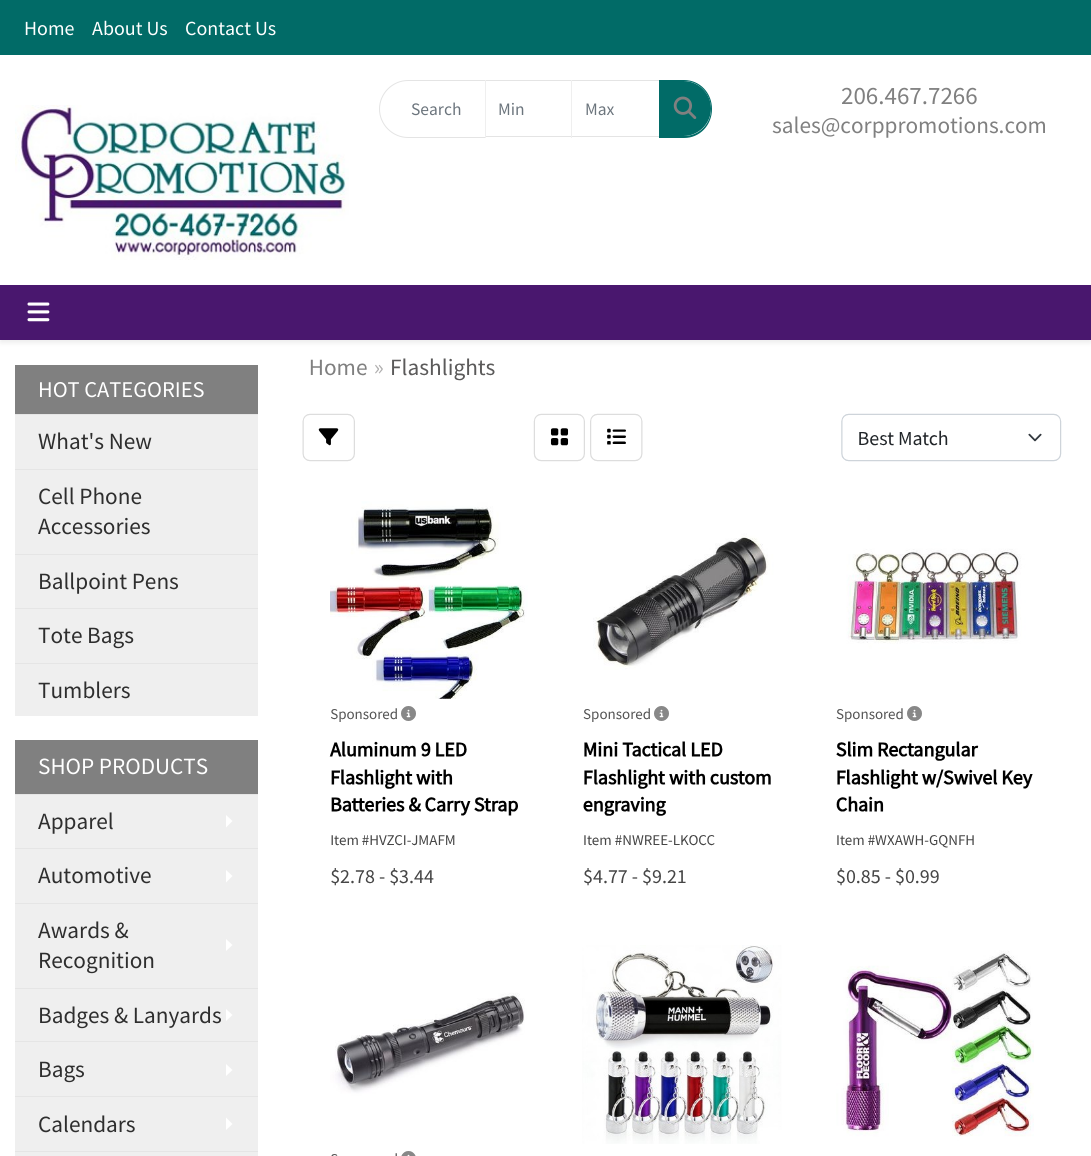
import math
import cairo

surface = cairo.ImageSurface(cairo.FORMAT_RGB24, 1091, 1156)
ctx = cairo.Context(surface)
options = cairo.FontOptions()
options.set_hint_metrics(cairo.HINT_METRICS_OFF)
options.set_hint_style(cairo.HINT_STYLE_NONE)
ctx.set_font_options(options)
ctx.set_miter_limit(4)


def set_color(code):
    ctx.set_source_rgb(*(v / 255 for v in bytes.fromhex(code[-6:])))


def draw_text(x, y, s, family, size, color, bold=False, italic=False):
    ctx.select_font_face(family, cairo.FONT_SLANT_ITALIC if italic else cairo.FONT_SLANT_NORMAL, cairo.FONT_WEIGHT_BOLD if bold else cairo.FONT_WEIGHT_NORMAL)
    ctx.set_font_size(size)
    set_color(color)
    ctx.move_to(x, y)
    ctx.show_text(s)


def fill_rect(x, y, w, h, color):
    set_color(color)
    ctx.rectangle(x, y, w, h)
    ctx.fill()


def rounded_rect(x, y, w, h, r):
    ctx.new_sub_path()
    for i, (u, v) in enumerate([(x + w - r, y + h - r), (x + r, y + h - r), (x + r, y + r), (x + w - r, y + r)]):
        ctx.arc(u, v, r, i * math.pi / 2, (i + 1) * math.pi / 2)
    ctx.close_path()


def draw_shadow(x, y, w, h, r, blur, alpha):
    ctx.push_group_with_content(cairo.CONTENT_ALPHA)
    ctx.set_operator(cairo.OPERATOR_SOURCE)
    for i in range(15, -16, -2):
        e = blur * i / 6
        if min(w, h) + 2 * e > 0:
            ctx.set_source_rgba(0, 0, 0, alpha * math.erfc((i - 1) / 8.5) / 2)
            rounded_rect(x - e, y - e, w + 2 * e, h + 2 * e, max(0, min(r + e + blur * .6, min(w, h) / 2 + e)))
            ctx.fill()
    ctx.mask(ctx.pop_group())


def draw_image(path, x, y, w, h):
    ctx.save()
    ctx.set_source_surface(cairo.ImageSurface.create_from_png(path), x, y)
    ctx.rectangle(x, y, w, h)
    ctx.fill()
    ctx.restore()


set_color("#ffffff")
ctx.paint()
fill_rect(0, 0, 1091, 55, "#016b67")
draw_text(24, 35, "Home", "Source Sans Pro", 20, "#ffffff")
draw_text(92, 35, "About Us", "Source Sans Pro", 20, "#ffffff")
draw_text(185, 35, "Contact Us", "Source Sans Pro", 20, "#ffffff")
draw_image("assets/img1.png", 15, 105, 334, 155)
ctx.new_path()
ctx.move_to(408, 80.5)
ctx.line_to(485.5, 80.5)
ctx.line_to(485.5, 137.5)
ctx.line_to(408, 137.5)
ctx.curve_to(392.5, 137.5, 379.5, 124.5, 379.5, 109)
ctx.curve_to(379.5, 93.5, 392.5, 80.5, 408, 80.5)
ctx.close_path()
set_color("#e4e4e4")
ctx.set_line_width(1)
ctx.stroke()
draw_text(411, 115, "Search", "Source Sans Pro", 17.5, "#6c757d")
fill_rect(485, 80, 175, 1, "#e4e4e4")
fill_rect(485, 136, 88, 1, "#e4e4e4")
fill_rect(485, 80, 1, 58, "#efefef")
draw_text(498, 115, "Min", "Source Sans Pro", 17.5, "#6c757d")
fill_rect(572, 136, 1, 1, "#ffffff")
fill_rect(571, 136, 89, 1, "#e4e4e4")
fill_rect(571, 80, 1, 58, "#efefef")
draw_text(585, 115, "Max", "Source Sans Pro", 17.5, "#6c757d")
set_color("#016b67")
ctx.new_path()
ctx.move_to(659, 81)
ctx.line_to(683.5, 81)
ctx.curve_to(698.5, 81, 711, 93.5, 711, 108.5)
ctx.curve_to(711, 123.5, 698.5, 136, 683.5, 136)
ctx.line_to(659, 136)
ctx.close_path()
ctx.fill()
ctx.set_fill_rule(cairo.FILL_RULE_EVEN_ODD)
ctx.new_path()
ctx.move_to(659, 80)
ctx.line_to(684, 80)
ctx.curve_to(700, 80, 712, 93, 712, 109)
ctx.curve_to(712, 125, 700, 138, 684, 138)
ctx.line_to(659, 138)
ctx.close_path()
ctx.move_to(659, 81)
ctx.line_to(684, 81)
ctx.curve_to(699, 81, 711, 94, 711, 109)
ctx.curve_to(711, 124, 699, 136, 684, 136)
ctx.line_to(659, 136)
ctx.close_path()
ctx.fill()
draw_image("assets/img2.png", 673, 96, 24, 23)
draw_text(841, 104, "206.467.7266", "Source Sans Pro", 25, "#808080")
draw_text(772, 133, "sales@corppromotions.com", "Source Sans Pro", 23.25, "#808080")
set_color("#000000")
draw_shadow(0, 288, 1091, 55, 0, 2.5, 0.07)
fill_rect(0, 285, 1091, 55, "#49176e")
draw_image("assets/img3.png", 27, 302, 23, 20)
fill_rect(15, 365, 243, 49, "#808080")
draw_text(38, 397, "HOT CATEGORIES", "Source Sans Pro", 22.5, "#ffffff")
fill_rect(15, 415, 243, 54, "#efefef")
fill_rect(15, 414, 243, 1, "#e5e5e5")
draw_text(38, 449, "What's New", "Source Sans Pro", 23.25, "#2e2e2e")
fill_rect(15, 470, 243, 84, "#efefef")
fill_rect(15, 469, 243, 1, "#e5e5e5")
draw_text(38, 504, "Cell Phone", "Source Sans Pro", 23.25, "#2e2e2e")
draw_text(38, 534, "Accessories", "Source Sans Pro", 23.25, "#2e2e2e")
fill_rect(15, 555, 243, 53, "#efefef")
fill_rect(15, 554, 243, 1, "#e5e5e5")
draw_text(38, 589, "Ballpoint Pens", "Source Sans Pro", 23.25, "#2e2e2e")
fill_rect(15, 609, 243, 54, "#efefef")
fill_rect(15, 608, 243, 1, "#e5e5e5")
draw_text(38, 643, "Tote Bags", "Source Sans Pro", 23.25, "#2e2e2e")
fill_rect(15, 664, 243, 52, "#efefef")
fill_rect(15, 663, 243, 1, "#e5e5e5")
draw_text(38, 698, "Tumblers", "Source Sans Pro", 23.25, "#2e2e2e")
fill_rect(15, 740, 243, 54, "#808080")
draw_text(38, 774, "SHOP PRODUCTS", "Source Sans Pro", 23.25, "#ffffff")
fill_rect(15, 795, 243, 53, "#efefef")
fill_rect(15, 794, 243, 1, "#e5e5e5")
draw_text(38, 829, "Apparel", "Source Sans Pro", 23.25, "#2e2e2e")
set_color("#ffffff")
ctx.set_fill_rule(cairo.FILL_RULE_WINDING)
ctx.new_path()
ctx.move_to(226, 827.5)
ctx.line_to(226, 815)
ctx.line_to(232.5, 821)
ctx.close_path()
ctx.fill()
fill_rect(15, 849, 243, 54, "#efefef")
fill_rect(15, 848, 243, 1, "#e5e5e5")
draw_text(38, 883, "Automotive", "Source Sans Pro", 23.25, "#2e2e2e")
set_color("#ffffff")
ctx.new_path()
ctx.move_to(226, 882.5)
ctx.line_to(226, 870)
ctx.line_to(232.5, 876)
ctx.close_path()
ctx.fill()
fill_rect(15, 904, 243, 84, "#efefef")
fill_rect(15, 903, 243, 1, "#e5e5e5")
draw_text(38, 938, "Awards &", "Source Sans Pro", 23.25, "#2e2e2e")
set_color("#ffffff")
ctx.new_path()
ctx.move_to(226, 951)
ctx.line_to(226, 939)
ctx.line_to(232.5, 945)
ctx.close_path()
ctx.fill()
draw_text(38, 968, "Recognition", "Source Sans Pro", 23.25, "#2e2e2e")
fill_rect(15, 989, 243, 52, "#efefef")
fill_rect(15, 988, 243, 1, "#e5e5e5")
draw_text(38, 1023, "Badges & Lanyards", "Source Sans Pro", 23.25, "#2e2e2e")
set_color("#ffffff")
ctx.new_path()
ctx.move_to(226, 1021)
ctx.line_to(226, 1009)
ctx.line_to(232.5, 1015)
ctx.close_path()
ctx.fill()
fill_rect(15, 1042, 243, 54, "#efefef")
fill_rect(15, 1041, 243, 1, "#e5e5e5")
draw_text(38, 1077, "Bags", "Source Sans Pro", 23.25, "#2e2e2e")
set_color("#ffffff")
ctx.new_path()
ctx.move_to(226, 1076)
ctx.line_to(226, 1064)
ctx.line_to(232.5, 1070)
ctx.close_path()
ctx.fill()
fill_rect(15, 1097, 243, 54, "#efefef")
fill_rect(15, 1096, 243, 1, "#e5e5e5")
draw_text(38, 1132, "Calendars", "Source Sans Pro", 23.25, "#2e2e2e")
set_color("#ffffff")
ctx.new_path()
ctx.move_to(226, 1130)
ctx.line_to(226, 1117.5)
ctx.line_to(232.5, 1124)
ctx.close_path()
ctx.fill()
fill_rect(15, 1152, 243, 4, "#efefef")
fill_rect(15, 1151, 243, 1, "#e5e5e5")
draw_image("assets/img4.png", 302, 358, 760, 798)
surface.write_to_png("output.png")
